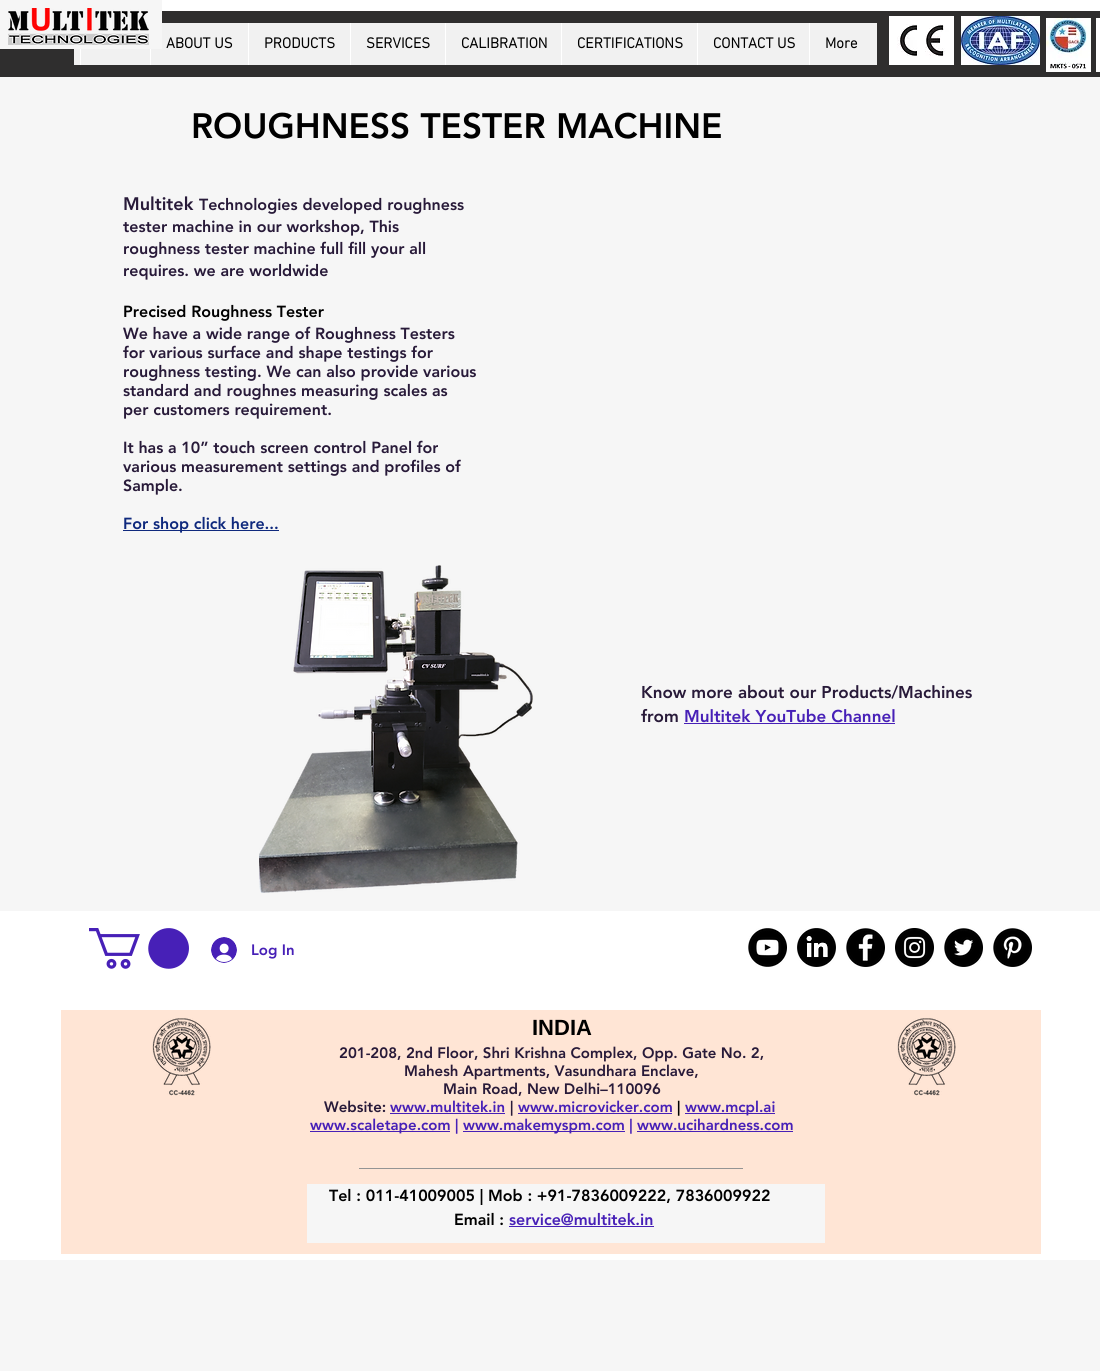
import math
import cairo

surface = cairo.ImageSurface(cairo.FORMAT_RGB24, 1100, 1371)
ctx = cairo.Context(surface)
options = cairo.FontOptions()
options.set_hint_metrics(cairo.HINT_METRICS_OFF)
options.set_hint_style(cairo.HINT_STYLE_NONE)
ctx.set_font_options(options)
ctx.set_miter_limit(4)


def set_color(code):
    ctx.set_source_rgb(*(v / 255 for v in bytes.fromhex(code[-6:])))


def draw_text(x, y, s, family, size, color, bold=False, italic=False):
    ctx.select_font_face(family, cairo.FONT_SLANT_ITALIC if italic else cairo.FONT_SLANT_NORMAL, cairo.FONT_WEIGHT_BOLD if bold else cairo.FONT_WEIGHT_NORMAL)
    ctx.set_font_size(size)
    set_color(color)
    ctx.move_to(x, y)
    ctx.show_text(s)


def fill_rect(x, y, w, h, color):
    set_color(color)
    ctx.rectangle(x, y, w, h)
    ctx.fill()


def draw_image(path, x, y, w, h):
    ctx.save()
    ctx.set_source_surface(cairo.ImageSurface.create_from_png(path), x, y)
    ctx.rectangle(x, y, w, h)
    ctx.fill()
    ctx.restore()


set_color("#ffffff")
ctx.paint()
fill_rect(0, 11, 1100, 66, "#2f2e2e")
fill_rect(74, 23, 803, 42, "#f1f1f1")
fill_rect(0, 0, 162, 49, "#f6f6f6")
draw_image("assets/img1.png", 8, 8, 141, 37)
fill_rect(150, 49, 1, 16, "#ffffff")
draw_text(166, 48, "ABOUT US", "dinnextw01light", 15, "#000000", bold=True)
fill_rect(248, 23, 1, 42, "#ffffff")
draw_text(264, 48, "PRODUCTS", "dinnextw01light", 15, "#000000", bold=True)
fill_rect(350, 23, 1, 42, "#ffffff")
draw_text(366, 48, "SERVICES", "dinnextw01light", 15, "#000000", bold=True)
fill_rect(445, 23, 1, 42, "#ffffff")
draw_text(461, 48, "CALIBRATION", "dinnextw01light", 15, "#000000", bold=True)
fill_rect(561, 23, 1, 42, "#ffffff")
draw_text(577, 48, "CERTIFICATIONS", "dinnextw01light", 15, "#000000", bold=True)
fill_rect(697, 23, 1, 42, "#ffffff")
draw_text(713, 48, "CONTACT US", "dinnextw01light", 15, "#000000", bold=True)
fill_rect(809, 23, 1, 42, "#ffffff")
draw_text(825, 48, "More", "dinnextw01light", 15, "#000000", bold=True)
fill_rect(80, 49, 1, 16, "#ffffff")
draw_image("assets/img2.png", 889, 16, 65, 49)
draw_image("assets/img3.png", 961, 16, 79, 49)
draw_image("assets/img4.png", 1046, 18, 45, 54)
fill_rect(1096, 18, 4, 54, "#ffffff")
fill_rect(0, 77, 1100, 1294, "#f6f6f6")
draw_text(191, 138, "ROUGHNESS TESTER MACHINE", "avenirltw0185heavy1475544 Black", 35, "#000000")
draw_text(123, 210, "Multitek", "avenirltw0185heavy1475544 Black", 18, "#281a39")
draw_text(199, 210, "Technologies developed roughness", "avenirltw0185heavy1475544 Black", 16, "#281a39")
draw_text(123, 232, "tester machine in our workshop, This", "avenirltw0185heavy1475544 Black", 16, "#281a39")
draw_text(123, 254, "roughness tester machine full fill your all", "avenirltw0185heavy1475544 Black", 16, "#281a39")
draw_text(123, 276, "requires. we are worldwide", "avenirltw0185heavy1475544 Black", 16, "#281a39")
draw_text(123, 317, "Precised Roughness Tester", "avenirltw0185heavy1475544 Black", 16, "#000000")
draw_text(123, 339, "We have a wide range of Roughness Testers", "avenirltw0185heavy1475544 Black", 16, "#281a39")
draw_text(123, 358, "for various surface and shape testings for", "avenirltw0185heavy1475544 Black", 16, "#281a39")
draw_text(123, 377, "roughness testing. We can also provide various", "avenirltw0185heavy1475544 Black", 16, "#281a39")
draw_text(123, 396, "standard and roughnes measuring scales as", "avenirltw0185heavy1475544 Black", 16, "#281a39")
draw_text(123, 415, "per customers requirement.", "avenirltw0185heavy1475544 Black", 16, "#281a39")
draw_text(123, 453, "It has a 10” touch screen control Panel for", "avenirltw0185heavy1475544 Black", 16, "#281a39")
draw_text(123, 472, "various measurement settings and profiles of", "avenirltw0185heavy1475544 Black", 16, "#281a39")
draw_text(123, 491, "Sample.", "avenirltw0185heavy1475544 Black", 16, "#281a39")
fill_rect(123, 530, 156, 1, "#0f297d")
draw_text(123, 529, "For shop click here...", "avenirltw0185heavy1475544 Black", 16, "#0f297d")
draw_image("assets/img5.png", 259, 565, 274, 328)
draw_text(641, 698, "Know more about our Products/Machines", "avenirltw0185heavy1475544 Black", 17, "#281a39")
draw_text(641, 722, "from", "avenirltw0185heavy1475544 Black", 17, "#281a39")
draw_text(684, 722, "Multitek YouTube Channel", "avenirltw0185heavy1475544 Black", 17, "#4720b7")
fill_rect(684, 723, 211, 1, "#4720b7")
fill_rect(0, 911, 1100, 349, "#ffffff")
draw_image("assets/img6.png", 89, 928, 100, 41)
draw_image("assets/img7.png", 211, 937, 26, 26)
draw_text(251, 955, "Log In", "avenirltw0185heavy1475544 Black", 15, "#4720b7")
draw_image("assets/img8.png", 748, 928, 39, 39)
draw_image("assets/img9.png", 797, 928, 39, 39)
draw_image("assets/img10.png", 846, 928, 39, 39)
draw_image("assets/img11.png", 895, 928, 39, 39)
draw_image("assets/img12.png", 944, 928, 39, 39)
draw_image("assets/img13.png", 993, 928, 39, 39)
fill_rect(61, 1010, 980, 244, "#ffe5d5")
draw_image("assets/img14.png", 152, 1018, 59, 78)
draw_text(532, 1035, "INDIA", "Liberation Sans", 22, "#000000", bold=True)
draw_text(339, 1058, "201-208, 2nd Floor, Shri Krishna Complex, Opp. Gate No. 2,", "avenirltw0185heavy1475544 Black", 15, "#281a39")
draw_text(404, 1076, "Mahesh Apartments, Vasundhara Enclave,", "avenirltw0185heavy1475544 Black", 15, "#281a39")
draw_text(443, 1094, "Main Road, New Delhi–110096", "avenirltw0185heavy1475544 Black", 15, "#281a39")
draw_text(324, 1112, "Website:", "avenirltw0185heavy1475544 Black", 15, "#281a39")
draw_text(390, 1112, "www.multitek.in", "avenirltw0185heavy1475544 Black", 15, "#4720b7")
fill_rect(390, 1113, 115, 1, "#4720b7")
draw_text(510, 1112, "|", "avenirltw0185heavy1475544 Black", 15, "#281a39")
draw_text(518, 1112, "www.microvicker.com", "avenirltw0185heavy1475544 Black", 15, "#4720b7")
fill_rect(518, 1113, 154, 1, "#4720b7")
draw_text(677, 1112, "|", "avenirltw0185heavy1475544 Black", 15, "#000000")
fill_rect(685, 1113, 90, 1, "#4720b7")
draw_text(685, 1112, "www.mcpl.ai", "avenirltw0185heavy1475544 Black", 15, "#4720b7")
fill_rect(310, 1131, 140, 1, "#4720b7")
draw_text(310, 1130, "www.scaletape.com |", "avenirltw0185heavy1475544 Black", 15, "#4720b7")
fill_rect(463, 1131, 162, 1, "#4720b7")
draw_text(463, 1130, "www.makemyspm.com | www.ucihardness.com", "avenirltw0185heavy1475544 Black", 15, "#4720b7")
fill_rect(637, 1131, 156, 1, "#4720b7")
draw_image("assets/img14.png", 897, 1018, 59, 78)
fill_rect(359, 1168, 384, 1, "#949494")
fill_rect(307, 1184, 518, 59, "#f6f6f6")
draw_text(329, 1201, "Tel : 011-41009005 | Mob : +91-7836009222, 7836009922", "avenirltw0185heavy1475544 Black", 16, "#000000")
draw_text(454, 1225, "Email :", "avenirltw0185heavy1475544 Black", 16, "#000000")
draw_text(509, 1225, "service@multitek.in", "avenirltw0185heavy1475544 Black", 16, "#4720b7")
fill_rect(509, 1226, 145, 1, "#4720b7")
surface.write_to_png("output.png")
